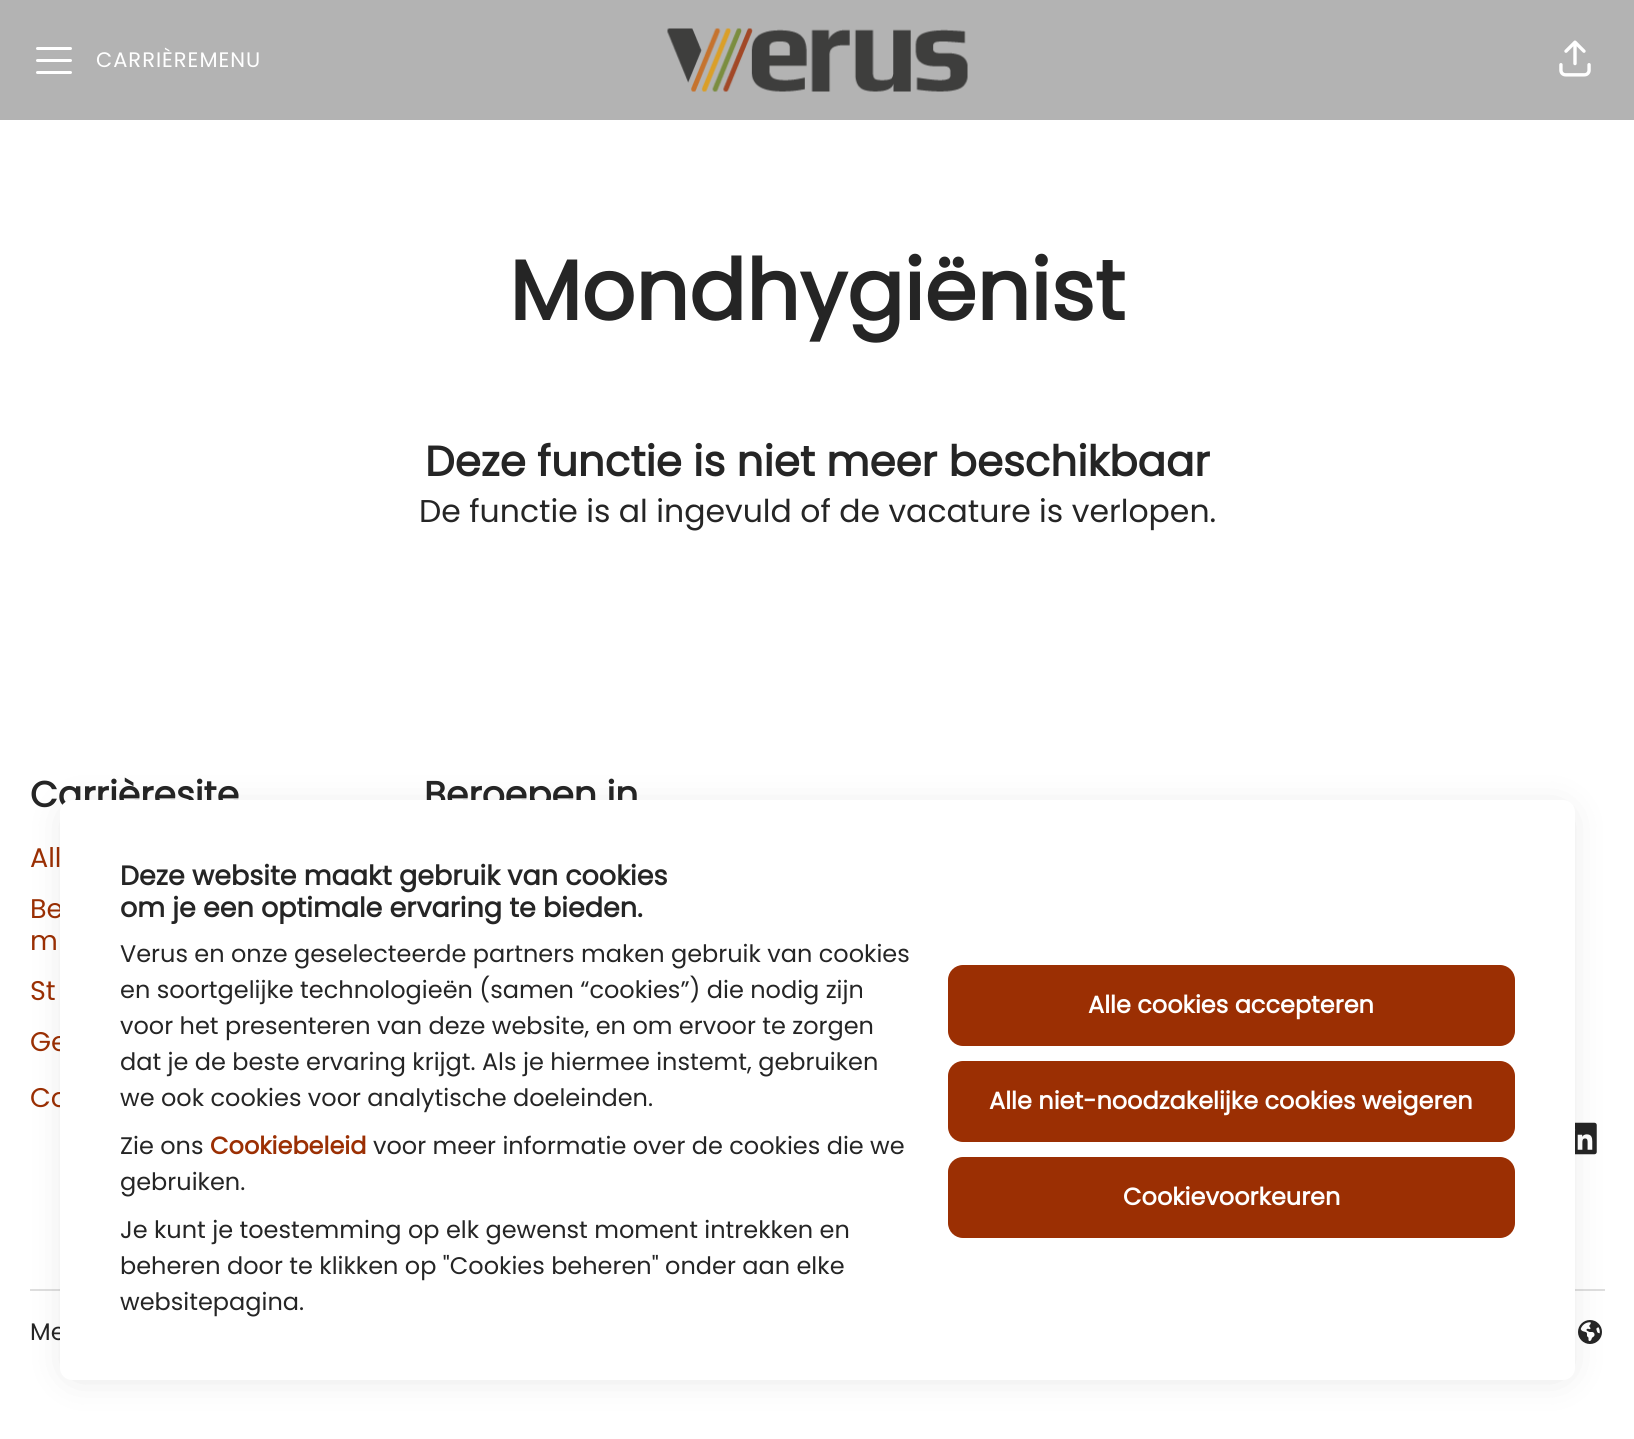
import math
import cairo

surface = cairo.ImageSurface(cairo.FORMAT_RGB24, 1634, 1439)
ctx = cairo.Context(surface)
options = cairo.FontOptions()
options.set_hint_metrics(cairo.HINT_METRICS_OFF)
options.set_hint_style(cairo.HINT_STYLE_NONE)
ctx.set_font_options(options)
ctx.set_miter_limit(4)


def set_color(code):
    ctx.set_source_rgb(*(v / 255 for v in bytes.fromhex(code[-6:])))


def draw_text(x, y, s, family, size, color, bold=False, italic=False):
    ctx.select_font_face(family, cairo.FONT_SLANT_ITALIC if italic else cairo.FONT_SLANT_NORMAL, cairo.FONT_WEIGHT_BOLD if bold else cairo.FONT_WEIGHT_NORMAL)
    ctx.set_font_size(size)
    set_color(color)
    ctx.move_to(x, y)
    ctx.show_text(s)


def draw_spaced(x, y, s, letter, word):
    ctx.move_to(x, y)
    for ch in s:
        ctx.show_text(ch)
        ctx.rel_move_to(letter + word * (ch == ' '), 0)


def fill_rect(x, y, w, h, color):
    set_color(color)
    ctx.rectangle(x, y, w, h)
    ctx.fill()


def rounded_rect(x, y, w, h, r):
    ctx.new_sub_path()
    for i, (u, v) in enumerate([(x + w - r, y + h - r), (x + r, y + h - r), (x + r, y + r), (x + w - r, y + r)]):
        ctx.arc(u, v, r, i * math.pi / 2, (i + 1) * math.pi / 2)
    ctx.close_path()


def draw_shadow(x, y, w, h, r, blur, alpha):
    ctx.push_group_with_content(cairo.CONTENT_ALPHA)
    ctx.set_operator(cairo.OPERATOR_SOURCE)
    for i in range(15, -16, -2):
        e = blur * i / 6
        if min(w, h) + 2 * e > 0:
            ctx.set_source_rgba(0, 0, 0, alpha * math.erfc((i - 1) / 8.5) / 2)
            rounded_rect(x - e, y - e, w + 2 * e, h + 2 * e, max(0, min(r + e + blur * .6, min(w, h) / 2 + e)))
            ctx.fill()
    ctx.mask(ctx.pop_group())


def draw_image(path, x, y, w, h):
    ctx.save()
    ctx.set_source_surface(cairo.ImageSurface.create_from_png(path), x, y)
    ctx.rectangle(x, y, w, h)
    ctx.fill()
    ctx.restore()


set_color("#ffffff")
ctx.paint()
fill_rect(0, 0, 1634, 120, "#b3b3b3")
set_color("#ffffff")
rounded_rect(36, 47, 36, 3, 1.5)
ctx.fill()
rounded_rect(36, 59, 36, 3, 1.5)
ctx.fill()
rounded_rect(36, 71, 36, 3, 1.5)
ctx.fill()
ctx.select_font_face("Poppins")
ctx.set_font_size(21)
draw_spaced(96, 67, "CARRIÈREMENU", 1, 0)
draw_image("assets/img1.png", 667, 28, 301, 64)
draw_image("assets/img2.png", 1559, 40, 32, 37)
draw_text(509, 320, "Mondhygiënist", "Poppins", 84, "#252525", bold=True)
draw_text(425, 476, "Deze functie is niet meer beschikbaar", "Poppins", 42, "#252525", bold=True)
draw_text(419, 522, "De functie is al ingevuld of de vacature is verlopen.", "Poppins", 31.5, "#252525")
draw_text(30, 807, "Carrièresite", "Poppins", 36, "#252525", bold=True)
draw_text(30, 867, "All", "Poppins", 27, "#9b2f03")
draw_text(30, 918, "Be", "Poppins", 27, "#9b2f03")
draw_text(30, 950, "m", "Poppins", 27, "#9b2f03")
draw_text(30, 1000, "St", "Poppins", 27, "#9b2f03")
draw_text(30, 1051, "Ge", "Poppins", 27, "#9b2f03")
draw_text(30, 1107, "Co", "Poppins", 27, "#9b2f03")
draw_text(424, 807, "Beroepen in", "Poppins", 36, "#252525", bold=True)
draw_image("assets/img3.png", 1575, 1122, 22, 33)
fill_rect(30, 1289, 1575, 2, "#dedede")
draw_text(30, 1340, "Me", "Poppins", 24, "#252525")
draw_image("assets/img4.png", 1578, 1320, 24, 24)
set_color("#000000")
draw_shadow(75, 818, 1485, 550, 0, 20, 0.18)
set_color("#ffffff")
rounded_rect(60, 800, 1515, 580, 12)
ctx.fill()
draw_text(120, 885, "Deze website maakt gebruik van cookies", "Poppins", 27, "#252525", bold=True)
draw_text(120, 917, "om je een optimale ervaring te bieden.", "Poppins", 27, "#252525", bold=True)
draw_text(120, 962, "Verus en onze geselecteerde partners maken gebruik van cookies", "Poppins", 24, "#252525")
draw_text(120, 998, "en soortgelijke technologieën (samen “cookies”) die nodig zijn", "Poppins", 24, "#252525")
draw_text(120, 1034, "voor het presenteren van deze website, en om ervoor te zorgen", "Poppins", 24, "#252525")
draw_text(120, 1070, "dat je de beste ervaring krijgt. Als je hiermee instemt, gebruiken", "Poppins", 24, "#252525")
draw_text(120, 1106, "we ook cookies voor analytische doeleinden.", "Poppins", 24, "#252525")
draw_text(120, 1154, "Zie ons", "Poppins", 24, "#252525")
draw_text(210, 1154, "Cookiebeleid", "Poppins", 24, "#9b2f03", bold=True)
draw_text(373, 1154, "voor meer informatie over de cookies die we", "Poppins", 24, "#252525")
draw_text(120, 1190, "gebruiken.", "Poppins", 24, "#252525")
draw_text(120, 1238, "Je kunt je toestemming op elk gewenst moment intrekken en", "Poppins", 24, "#252525")
draw_text(120, 1274, "beheren door te klikken op \"Cookies beheren\" onder aan elke", "Poppins", 24, "#252525")
draw_text(120, 1310, "websitepagina.", "Poppins", 24, "#252525")
set_color("#9b2f03")
rounded_rect(948, 965, 567, 81, 15)
ctx.fill()
draw_text(1088, 1013, "Alle cookies accepteren", "Poppins", 24, "#ffffff", bold=True)
set_color("#9b2f03")
rounded_rect(948, 1061, 567, 81, 15)
ctx.fill()
draw_text(989, 1109, "Alle niet-noodzakelijke cookies weigeren", "Poppins", 24, "#ffffff", bold=True)
set_color("#9b2f03")
rounded_rect(948, 1157, 567, 81, 15)
ctx.fill()
draw_text(1123, 1205, "Cookievoorkeuren", "Poppins", 24, "#ffffff", bold=True)
surface.write_to_png("output.png")
